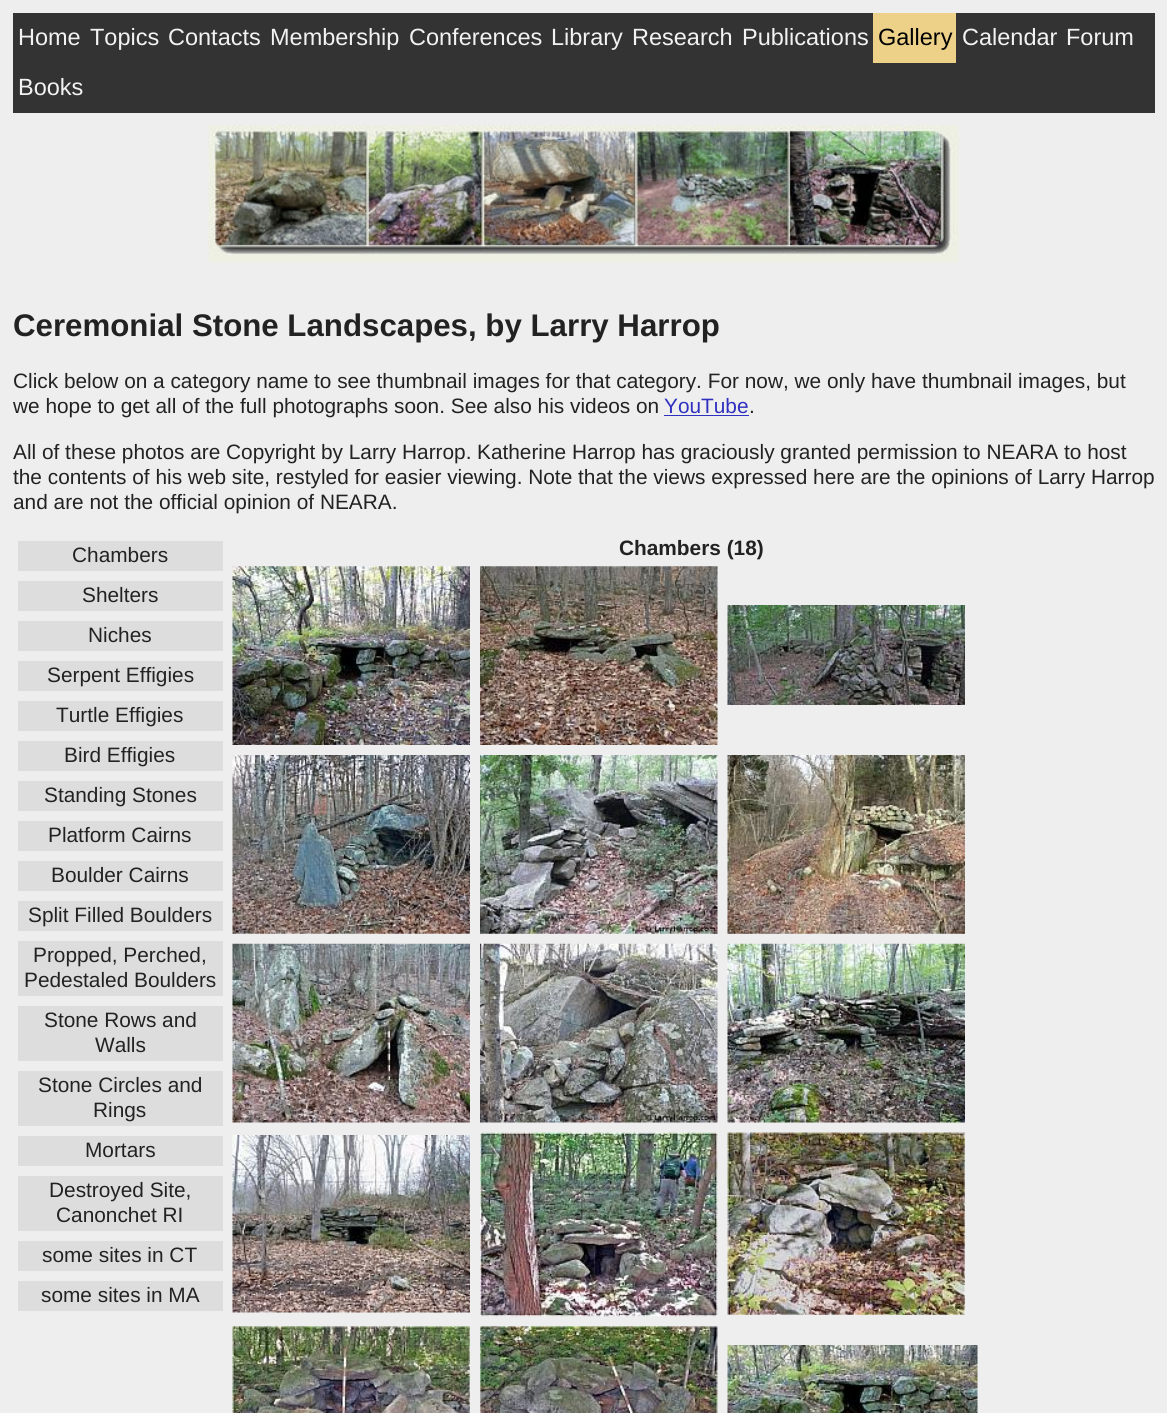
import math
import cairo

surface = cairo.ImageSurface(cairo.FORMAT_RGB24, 1167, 1413)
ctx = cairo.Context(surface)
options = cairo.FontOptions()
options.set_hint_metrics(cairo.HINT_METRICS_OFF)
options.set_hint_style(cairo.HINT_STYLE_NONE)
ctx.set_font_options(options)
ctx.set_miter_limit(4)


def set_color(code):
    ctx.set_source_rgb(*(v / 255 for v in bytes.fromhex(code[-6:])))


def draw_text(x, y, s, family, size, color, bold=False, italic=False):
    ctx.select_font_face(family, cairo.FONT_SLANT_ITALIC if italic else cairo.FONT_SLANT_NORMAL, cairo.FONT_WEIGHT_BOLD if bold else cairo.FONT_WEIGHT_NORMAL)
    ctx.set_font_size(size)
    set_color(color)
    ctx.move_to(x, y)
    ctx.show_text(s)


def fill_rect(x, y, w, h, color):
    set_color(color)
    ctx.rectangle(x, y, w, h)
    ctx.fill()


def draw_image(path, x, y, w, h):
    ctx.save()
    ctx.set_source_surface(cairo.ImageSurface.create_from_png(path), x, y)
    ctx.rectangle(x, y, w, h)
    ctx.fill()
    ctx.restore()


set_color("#eeeeee")
ctx.paint()
fill_rect(13, 13, 1142, 100, "#333333")
draw_text(18, 45, "Home", "Liberation Sans", 23.5, "#f2f2f2")
draw_text(90, 45, "Topics", "Liberation Sans", 23.5, "#f2f2f2")
draw_text(168, 45, "Contacts", "Liberation Sans", 23.5, "#f2f2f2")
draw_text(270, 45, "Membership", "Liberation Sans", 23.5, "#f2f2f2")
draw_text(409, 45, "Conferences", "Liberation Sans", 23.5, "#f2f2f2")
draw_text(551, 45, "Library", "Liberation Sans", 23.5, "#f2f2f2")
draw_text(632, 45, "Research", "Liberation Sans", 23.5, "#f2f2f2")
draw_text(742, 45, "Publications", "Liberation Sans", 23.5, "#f2f2f2")
fill_rect(873, 13, 83, 50, "#eed189")
draw_text(878, 45, "Gallery", "Liberation Sans", 23.5, "#000000")
draw_text(962, 45, "Calendar", "Liberation Sans", 23.5, "#f2f2f2")
draw_text(1066, 45, "Forum", "Liberation Sans", 23.5, "#f2f2f2")
draw_text(18, 95, "Books", "Liberation Sans", 23.5, "#f2f2f2")
draw_image("assets/img1.png", 208, 125, 751, 138)
draw_text(13, 336, "Ceremonial Stone Landscapes, by Larry Harrop", "Liberation Sans", 31.25, "#222222", bold=True)
draw_text(13, 388, "Click below on a category name to see thumbnail images for that category. For now, we only have thumbnail images, but", "Liberation Sans", 20.83, "#222222")
draw_text(13, 413, "we hope to get all of the full photographs soon. See also his videos on", "Liberation Sans", 20.83, "#222222")
draw_text(664, 413, "YouTube", "Liberation Sans", 20.83, "#3030c0")
fill_rect(664, 415, 85, 1, "#3030c0")
draw_text(749, 413, ".", "Liberation Sans", 20.83, "#222222")
draw_text(13, 459, "All of these photos are Copyright by Larry Harrop.", "Liberation Sans", 20.83, "#222222")
draw_text(477, 459, "Katherine Harrop has graciously granted permission to NEARA to host", "Liberation Sans", 20.83, "#222222")
draw_text(13, 484, "the contents of his web site, restyled for easier viewing. Note that the views expressed here are the opinions of Larry Harrop", "Liberation Sans", 20.83, "#222222")
draw_text(13, 509, "and are not the official opinion of NEARA.", "Liberation Sans", 20.83, "#222222")
fill_rect(18, 541, 205, 30, "#dddddd")
draw_text(72, 562, "Chambers", "Liberation Sans", 20.83, "#222222")
fill_rect(18, 581, 205, 30, "#dddddd")
draw_text(82, 602, "Shelters", "Liberation Sans", 20.83, "#222222")
fill_rect(18, 621, 205, 30, "#dddddd")
draw_text(88, 642, "Niches", "Liberation Sans", 20.83, "#222222")
fill_rect(18, 661, 205, 30, "#dddddd")
draw_text(47, 682, "Serpent Effigies", "Liberation Sans", 20.83, "#222222")
fill_rect(18, 701, 205, 30, "#dddddd")
draw_text(56, 722, "Turtle Effigies", "Liberation Sans", 20.83, "#222222")
fill_rect(18, 741, 205, 30, "#dddddd")
draw_text(64, 762, "Bird Effigies", "Liberation Sans", 20.83, "#222222")
fill_rect(18, 781, 205, 30, "#dddddd")
draw_text(44, 802, "Standing Stones", "Liberation Sans", 20.83, "#222222")
fill_rect(18, 821, 205, 30, "#dddddd")
draw_text(48, 842, "Platform Cairns", "Liberation Sans", 20.83, "#222222")
fill_rect(18, 861, 205, 30, "#dddddd")
draw_text(51, 882, "Boulder Cairns", "Liberation Sans", 20.83, "#222222")
fill_rect(18, 901, 205, 30, "#dddddd")
draw_text(28, 922, "Split Filled Boulders", "Liberation Sans", 20.83, "#222222")
fill_rect(18, 941, 205, 55, "#dddddd")
draw_text(33, 962, "Propped, Perched,", "Liberation Sans", 20.83, "#222222")
draw_text(24, 987, "Pedestaled Boulders", "Liberation Sans", 20.83, "#222222")
fill_rect(18, 1006, 205, 55, "#dddddd")
draw_text(44, 1027, "Stone Rows and", "Liberation Sans", 20.83, "#222222")
draw_text(95, 1052, "Walls", "Liberation Sans", 20.83, "#222222")
fill_rect(18, 1071, 205, 55, "#dddddd")
draw_text(38, 1092, "Stone Circles and", "Liberation Sans", 20.83, "#222222")
draw_text(93, 1117, "Rings", "Liberation Sans", 20.83, "#222222")
fill_rect(18, 1136, 205, 30, "#dddddd")
draw_text(85, 1157, "Mortars", "Liberation Sans", 20.83, "#222222")
fill_rect(18, 1176, 205, 55, "#dddddd")
draw_text(49, 1197, "Destroyed Site,", "Liberation Sans", 20.83, "#222222")
draw_text(56, 1222, "Canonchet RI", "Liberation Sans", 20.83, "#222222")
fill_rect(18, 1241, 205, 30, "#dddddd")
draw_text(42, 1262, "some sites in CT", "Liberation Sans", 20.83, "#222222")
fill_rect(18, 1281, 205, 30, "#dddddd")
draw_text(41, 1302, "some sites in MA", "Liberation Sans", 20.83, "#222222")
draw_text(619, 555, "Chambers (18)", "Liberation Sans", 20.83, "#222222", bold=True)
draw_image("assets/img2.png", 232, 566, 238, 179)
draw_image("assets/img3.png", 480, 566, 238, 179)
draw_image("assets/img4.png", 727, 605, 238, 100)
draw_image("assets/img5.png", 232, 755, 238, 179)
draw_image("assets/img6.png", 480, 755, 238, 179)
draw_image("assets/img7.png", 727, 755, 238, 179)
draw_image("assets/img8.png", 232, 943, 238, 180)
draw_image("assets/img9.png", 480, 943, 238, 180)
draw_image("assets/img10.png", 727, 943, 238, 180)
draw_image("assets/img11.png", 232, 1135, 238, 178)
draw_image("assets/img12.png", 480, 1132, 238, 185)
draw_image("assets/img13.png", 727, 1132, 238, 183)
draw_image("assets/img14.png", 232, 1326, 238, 87)
draw_image("assets/img15.png", 480, 1326, 238, 87)
draw_image("assets/img16.png", 727, 1345, 251, 68)
surface.write_to_png("output.png")
